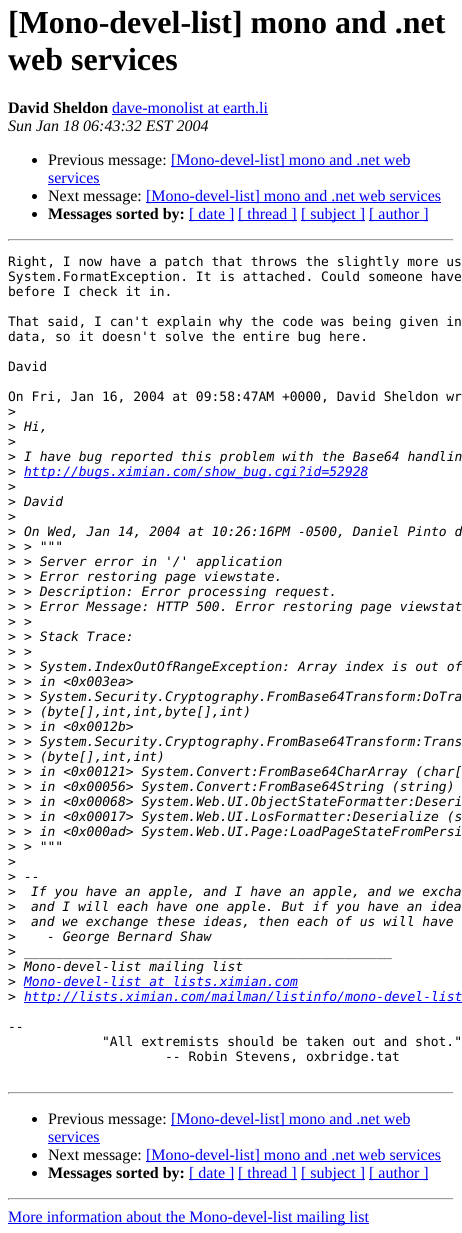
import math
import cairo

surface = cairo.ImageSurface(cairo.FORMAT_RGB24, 462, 1233)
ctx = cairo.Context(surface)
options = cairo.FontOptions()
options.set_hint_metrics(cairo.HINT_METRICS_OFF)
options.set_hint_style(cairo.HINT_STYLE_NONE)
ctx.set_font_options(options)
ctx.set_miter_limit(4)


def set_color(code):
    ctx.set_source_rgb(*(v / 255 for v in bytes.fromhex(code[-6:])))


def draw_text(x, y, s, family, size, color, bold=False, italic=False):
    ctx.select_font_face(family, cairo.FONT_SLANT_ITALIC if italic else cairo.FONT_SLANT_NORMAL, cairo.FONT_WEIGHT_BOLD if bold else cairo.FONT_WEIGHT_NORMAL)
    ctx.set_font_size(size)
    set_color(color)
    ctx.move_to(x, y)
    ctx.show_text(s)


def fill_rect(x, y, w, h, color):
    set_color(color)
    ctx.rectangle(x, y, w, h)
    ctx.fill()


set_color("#ffffff")
ctx.paint()
draw_text(8, 33, "[Mono-devel-list] mono and .net", "Liberation Serif", 32, "#000000", bold=True)
draw_text(8, 70, "web services", "Liberation Serif", 32, "#000000", bold=True)
draw_text(8, 113, "David Sheldon", "Liberation Serif", 16, "#000000", bold=True)
draw_text(112, 113, "dave-monolist at earth.li", "Liberation Serif", 16, "#0000ee")
fill_rect(112, 114, 156, 1, "#0000ee")
draw_text(8, 131, "Sun Jan 18 06:43:32 EST 2004", "Liberation Serif", 16, "#000000", italic=True)
ctx.new_path()
ctx.arc(34.5, 160.5, 2.5, 0, 2 * math.pi)
ctx.fill()
draw_text(48, 165, "Previous message:", "Liberation Serif", 16, "#000000")
fill_rect(171, 166, 239, 1, "#0000ee")
draw_text(171, 165, "[Mono-devel-list] mono and .net web", "Liberation Serif", 16, "#0000ee")
draw_text(48, 183, "services", "Liberation Serif", 16, "#0000ee")
fill_rect(48, 184, 52, 1, "#0000ee")
set_color("#000000")
ctx.new_path()
ctx.arc(34.5, 196.5, 2.5, 0, 2 * math.pi)
ctx.fill()
draw_text(48, 201, "Next message:", "Liberation Serif", 16, "#000000")
fill_rect(146, 202, 295, 1, "#0000ee")
draw_text(146, 201, "[Mono-devel-list] mono and .net web services", "Liberation Serif", 16, "#0000ee")
set_color("#000000")
ctx.new_path()
ctx.arc(34.5, 214.5, 2.5, 0, 2 * math.pi)
ctx.fill()
draw_text(48, 219, "Messages sorted by:", "Liberation Serif", 16, "#000000", bold=True)
fill_rect(189, 220, 45, 1, "#0000ee")
draw_text(189, 219, "[ date ]", "Liberation Serif", 16, "#0000ee")
fill_rect(238, 220, 59, 1, "#0000ee")
draw_text(238, 219, "[ thread ]", "Liberation Serif", 16, "#0000ee")
fill_rect(301, 220, 64, 1, "#0000ee")
draw_text(301, 219, "[ subject ]", "Liberation Serif", 16, "#0000ee")
fill_rect(369, 220, 59, 1, "#0000ee")
draw_text(369, 219, "[ author ]", "Liberation Serif", 16, "#0000ee")
fill_rect(8, 239, 446, 1, "#9f9f9f")
fill_rect(453, 239, 1, 2, "#eeeeee")
fill_rect(8, 240, 446, 1, "#eeeeee")
fill_rect(8, 239, 1, 2, "#9f9f9f")
draw_text(8, 266, "Right, I now have a patch that throws the slightly more us", "DejaVu Sans Mono", 13, "#000000")
draw_text(8, 281, "System.FormatException. It is attached. Could someone have", "DejaVu Sans Mono", 13, "#000000")
draw_text(8, 296, "before I check it in.", "DejaVu Sans Mono", 13, "#000000")
draw_text(8, 326, "That said, I can't explain why the code was being given in", "DejaVu Sans Mono", 13, "#000000")
draw_text(8, 341, "data, so it doesn't solve the entire bug here.", "DejaVu Sans Mono", 13, "#000000")
draw_text(8, 371, "David", "DejaVu Sans Mono", 13, "#000000")
draw_text(8, 401, "On Fri, Jan 16, 2004 at 09:58:47AM +0000, David Sheldon wr", "DejaVu Sans Mono", 13, "#000000")
draw_text(8, 416, ">", "DejaVu Sans Mono", 13, "#000000")
draw_text(8, 431, ">", "DejaVu Sans Mono", 13, "#000000")
draw_text(24, 431, "Hi,", "DejaVu Sans Mono", 13, "#000000", italic=True)
draw_text(8, 446, ">", "DejaVu Sans Mono", 13, "#000000")
draw_text(8, 461, ">", "DejaVu Sans Mono", 13, "#000000")
draw_text(24, 461, "I have bug reported this problem with the Base64 handlin", "DejaVu Sans Mono", 13, "#000000", italic=True)
draw_text(8, 476, ">", "DejaVu Sans Mono", 13, "#000000")
fill_rect(24, 477, 344, 1, "#0000ee")
draw_text(24, 476, "http://bugs.ximian.com/show_bug.cgi?id=52928", "DejaVu Sans Mono", 13, "#0000ee", italic=True)
draw_text(8, 491, ">", "DejaVu Sans Mono", 13, "#000000")
draw_text(8, 506, ">", "DejaVu Sans Mono", 13, "#000000")
draw_text(24, 506, "David", "DejaVu Sans Mono", 13, "#000000", italic=True)
draw_text(8, 521, ">", "DejaVu Sans Mono", 13, "#000000")
draw_text(8, 536, ">", "DejaVu Sans Mono", 13, "#000000")
draw_text(24, 536, "On Wed, Jan 14, 2004 at 10:26:16PM -0500, Daniel Pinto d", "DejaVu Sans Mono", 13, "#000000", italic=True)
draw_text(8, 551, ">", "DejaVu Sans Mono", 13, "#000000")
draw_text(24, 551, "> \"\"\"", "DejaVu Sans Mono", 13, "#000000", italic=True)
draw_text(8, 566, ">", "DejaVu Sans Mono", 13, "#000000")
draw_text(24, 566, "> Server error in '/' application", "DejaVu Sans Mono", 13, "#000000", italic=True)
draw_text(8, 581, ">", "DejaVu Sans Mono", 13, "#000000")
draw_text(24, 581, "> Error restoring page viewstate.", "DejaVu Sans Mono", 13, "#000000", italic=True)
draw_text(8, 596, ">", "DejaVu Sans Mono", 13, "#000000")
draw_text(24, 596, "> Description: Error processing request.", "DejaVu Sans Mono", 13, "#000000", italic=True)
draw_text(8, 611, ">", "DejaVu Sans Mono", 13, "#000000")
draw_text(24, 611, "> Error Message: HTTP 500. Error restoring page viewstat", "DejaVu Sans Mono", 13, "#000000", italic=True)
draw_text(8, 626, ">", "DejaVu Sans Mono", 13, "#000000")
draw_text(24, 626, ">", "DejaVu Sans Mono", 13, "#000000", italic=True)
draw_text(8, 641, ">", "DejaVu Sans Mono", 13, "#000000")
draw_text(24, 641, "> Stack Trace:", "DejaVu Sans Mono", 13, "#000000", italic=True)
draw_text(8, 656, ">", "DejaVu Sans Mono", 13, "#000000")
draw_text(24, 656, ">", "DejaVu Sans Mono", 13, "#000000", italic=True)
draw_text(8, 671, ">", "DejaVu Sans Mono", 13, "#000000")
draw_text(24, 671, "> System.IndexOutOfRangeException: Array index is out of", "DejaVu Sans Mono", 13, "#000000", italic=True)
draw_text(8, 686, ">", "DejaVu Sans Mono", 13, "#000000")
draw_text(24, 686, "> in <0x003ea>", "DejaVu Sans Mono", 13, "#000000", italic=True)
draw_text(8, 701, ">", "DejaVu Sans Mono", 13, "#000000")
draw_text(24, 701, "> System.Security.Cryptography.FromBase64Transform:DoTra", "DejaVu Sans Mono", 13, "#000000", italic=True)
draw_text(8, 716, ">", "DejaVu Sans Mono", 13, "#000000")
draw_text(24, 716, "> (byte[],int,int,byte[],int)", "DejaVu Sans Mono", 13, "#000000", italic=True)
draw_text(8, 731, ">", "DejaVu Sans Mono", 13, "#000000")
draw_text(24, 731, "> in <0x0012b>", "DejaVu Sans Mono", 13, "#000000", italic=True)
draw_text(8, 746, ">", "DejaVu Sans Mono", 13, "#000000")
draw_text(24, 746, "> System.Security.Cryptography.FromBase64Transform:Trans", "DejaVu Sans Mono", 13, "#000000", italic=True)
draw_text(8, 761, ">", "DejaVu Sans Mono", 13, "#000000")
draw_text(24, 761, "> (byte[],int,int)", "DejaVu Sans Mono", 13, "#000000", italic=True)
draw_text(8, 776, ">", "DejaVu Sans Mono", 13, "#000000")
draw_text(24, 776, "> in <0x00121> System.Convert:FromBase64CharArray (char[", "DejaVu Sans Mono", 13, "#000000", italic=True)
draw_text(8, 791, ">", "DejaVu Sans Mono", 13, "#000000")
draw_text(24, 791, "> in <0x00056> System.Convert:FromBase64String (string)", "DejaVu Sans Mono", 13, "#000000", italic=True)
draw_text(8, 806, ">", "DejaVu Sans Mono", 13, "#000000")
draw_text(24, 806, "> in <0x00068> System.Web.UI.ObjectStateFormatter:Deseri", "DejaVu Sans Mono", 13, "#000000", italic=True)
draw_text(8, 821, ">", "DejaVu Sans Mono", 13, "#000000")
draw_text(24, 821, "> in <0x00017> System.Web.UI.LosFormatter:Deserialize (s", "DejaVu Sans Mono", 13, "#000000", italic=True)
draw_text(8, 836, ">", "DejaVu Sans Mono", 13, "#000000")
draw_text(24, 836, "> in <0x000ad> System.Web.UI.Page:LoadPageStateFromPersi", "DejaVu Sans Mono", 13, "#000000", italic=True)
draw_text(8, 851, ">", "DejaVu Sans Mono", 13, "#000000")
draw_text(24, 851, "> \"\"\"", "DejaVu Sans Mono", 13, "#000000", italic=True)
draw_text(8, 866, ">", "DejaVu Sans Mono", 13, "#000000")
draw_text(8, 881, ">", "DejaVu Sans Mono", 13, "#000000")
draw_text(24, 881, "--", "DejaVu Sans Mono", 13, "#000000", italic=True)
draw_text(8, 896, ">", "DejaVu Sans Mono", 13, "#000000")
draw_text(31, 896, "If you have an apple, and I have an apple, and we excha", "DejaVu Sans Mono", 13, "#000000", italic=True)
draw_text(8, 911, ">", "DejaVu Sans Mono", 13, "#000000")
draw_text(31, 911, "and I will each have one apple. But if you have an idea", "DejaVu Sans Mono", 13, "#000000", italic=True)
draw_text(8, 926, ">", "DejaVu Sans Mono", 13, "#000000")
draw_text(31, 926, "and we exchange these ideas, then each of us will have", "DejaVu Sans Mono", 13, "#000000", italic=True)
draw_text(8, 941, ">", "DejaVu Sans Mono", 13, "#000000")
draw_text(47, 941, "- George Bernard Shaw", "DejaVu Sans Mono", 13, "#000000", italic=True)
draw_text(8, 956, ">", "DejaVu Sans Mono", 13, "#000000")
draw_text(24, 956, "_______________________________________________", "DejaVu Sans Mono", 13, "#000000", italic=True)
draw_text(8, 971, ">", "DejaVu Sans Mono", 13, "#000000")
draw_text(24, 971, "Mono-devel-list mailing list", "DejaVu Sans Mono", 13, "#000000", italic=True)
draw_text(8, 986, ">", "DejaVu Sans Mono", 13, "#000000")
draw_text(24, 986, "Mono-devel-list at lists.ximian.com", "DejaVu Sans Mono", 13, "#0000ee", italic=True)
fill_rect(24, 987, 274, 1, "#0000ee")
draw_text(8, 1001, ">", "DejaVu Sans Mono", 13, "#000000")
fill_rect(24, 1002, 438, 1, "#0000ee")
draw_text(24, 1001, "http://lists.ximian.com/mailman/listinfo/mono-devel-list", "DejaVu Sans Mono", 13, "#0000ee", italic=True)
draw_text(8, 1031, "--", "DejaVu Sans Mono", 13, "#000000")
draw_text(102, 1046, "\"All extremists should be taken out and shot.\"", "DejaVu Sans Mono", 13, "#000000")
draw_text(165, 1061, "-- Robin Stevens, oxbridge.tat", "DejaVu Sans Mono", 13, "#000000")
fill_rect(8, 1092, 446, 1, "#9f9f9f")
fill_rect(453, 1092, 1, 2, "#eeeeee")
fill_rect(8, 1093, 446, 1, "#eeeeee")
fill_rect(8, 1092, 1, 2, "#9f9f9f")
set_color("#000000")
ctx.new_path()
ctx.arc(34.5, 1119.5, 2.5, 0, 2 * math.pi)
ctx.fill()
draw_text(48, 1124, "Previous message:", "Liberation Serif", 16, "#000000")
fill_rect(171, 1125, 239, 1, "#0000ee")
draw_text(171, 1124, "[Mono-devel-list] mono and .net web", "Liberation Serif", 16, "#0000ee")
draw_text(48, 1142, "services", "Liberation Serif", 16, "#0000ee")
fill_rect(48, 1143, 52, 1, "#0000ee")
set_color("#000000")
ctx.new_path()
ctx.arc(34.5, 1155.5, 2.5, 0, 2 * math.pi)
ctx.fill()
draw_text(48, 1160, "Next message:", "Liberation Serif", 16, "#000000")
fill_rect(146, 1161, 295, 1, "#0000ee")
draw_text(146, 1160, "[Mono-devel-list] mono and .net web services", "Liberation Serif", 16, "#0000ee")
set_color("#000000")
ctx.new_path()
ctx.arc(34.5, 1173.5, 2.5, 0, 2 * math.pi)
ctx.fill()
draw_text(48, 1178, "Messages sorted by:", "Liberation Serif", 16, "#000000", bold=True)
fill_rect(189, 1179, 45, 1, "#0000ee")
draw_text(189, 1178, "[ date ]", "Liberation Serif", 16, "#0000ee")
fill_rect(238, 1179, 59, 1, "#0000ee")
draw_text(238, 1178, "[ thread ]", "Liberation Serif", 16, "#0000ee")
fill_rect(301, 1179, 64, 1, "#0000ee")
draw_text(301, 1178, "[ subject ]", "Liberation Serif", 16, "#0000ee")
fill_rect(369, 1179, 59, 1, "#0000ee")
draw_text(369, 1178, "[ author ]", "Liberation Serif", 16, "#0000ee")
fill_rect(8, 1198, 446, 1, "#9f9f9f")
fill_rect(453, 1198, 1, 2, "#eeeeee")
fill_rect(8, 1199, 446, 1, "#eeeeee")
fill_rect(8, 1198, 1, 2, "#9f9f9f")
fill_rect(8, 1223, 361, 1, "#0000ee")
draw_text(8, 1222, "More information about the Mono-devel-list mailing list", "Liberation Serif", 16, "#0000ee")
surface.write_to_png("output.png")
